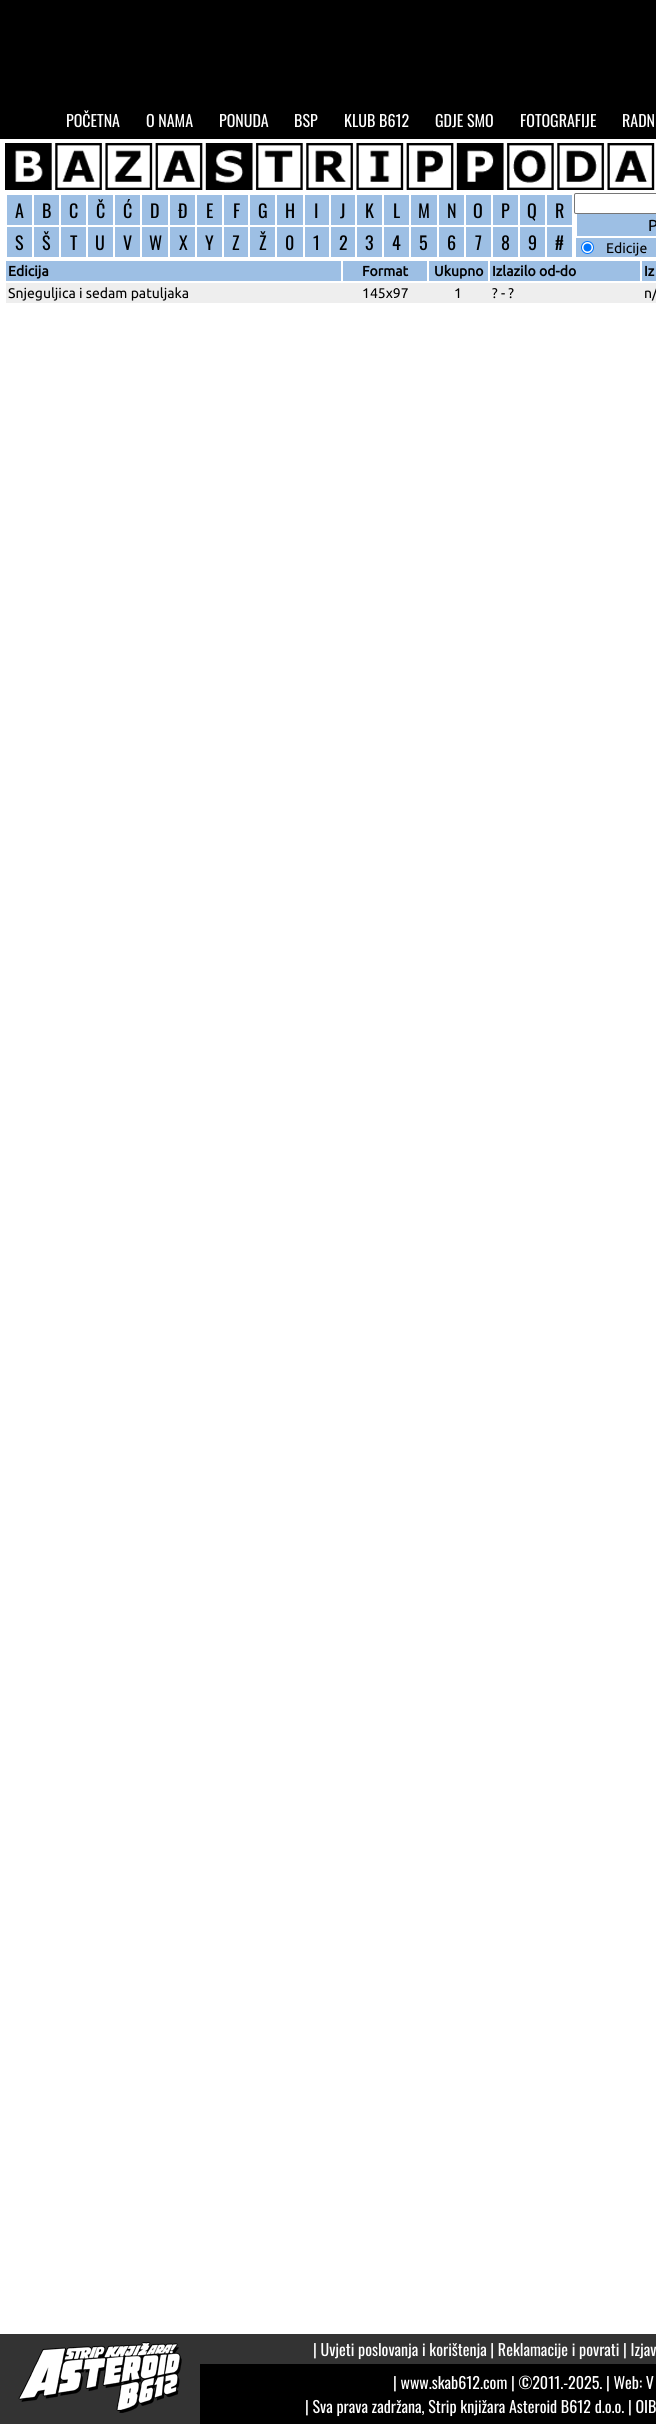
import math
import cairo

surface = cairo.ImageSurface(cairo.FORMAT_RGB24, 656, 2424)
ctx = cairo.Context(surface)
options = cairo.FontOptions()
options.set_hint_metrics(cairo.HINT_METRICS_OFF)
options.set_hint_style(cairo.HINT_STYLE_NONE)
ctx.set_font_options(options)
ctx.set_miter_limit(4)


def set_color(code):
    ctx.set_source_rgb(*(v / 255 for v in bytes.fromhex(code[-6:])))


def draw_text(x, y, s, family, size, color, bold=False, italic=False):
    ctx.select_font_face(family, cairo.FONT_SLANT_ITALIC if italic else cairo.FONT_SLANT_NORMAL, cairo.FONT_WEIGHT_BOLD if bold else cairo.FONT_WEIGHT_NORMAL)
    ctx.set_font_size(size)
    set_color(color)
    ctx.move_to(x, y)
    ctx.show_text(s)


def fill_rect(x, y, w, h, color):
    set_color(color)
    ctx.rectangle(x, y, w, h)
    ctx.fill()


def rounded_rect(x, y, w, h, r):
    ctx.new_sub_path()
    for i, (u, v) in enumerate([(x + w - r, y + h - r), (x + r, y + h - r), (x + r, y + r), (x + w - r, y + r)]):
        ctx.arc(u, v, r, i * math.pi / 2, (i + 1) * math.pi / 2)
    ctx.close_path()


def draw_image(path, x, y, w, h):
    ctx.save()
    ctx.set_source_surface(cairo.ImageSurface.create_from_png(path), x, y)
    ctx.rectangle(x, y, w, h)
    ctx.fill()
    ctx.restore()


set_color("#000000")
ctx.paint()
draw_text(66, 127, "POČETNA", "Oswald", 16, "#ffffff")
draw_text(146, 127, "O NAMA", "Oswald", 16, "#ffffff")
draw_text(219, 127, "PONUDA", "Oswald", 16, "#ffffff")
draw_text(294, 127, "BSP", "Oswald", 16, "#ffffff")
draw_text(344, 127, "KLUB B612", "Oswald", 16, "#ffffff")
draw_text(435, 127, "GDJE SMO", "Oswald", 16, "#ffffff")
draw_text(520, 127, "FOTOGRAFIJE", "Oswald", 16, "#ffffff")
draw_text(622, 127, "RADN", "Oswald", 16, "#ffffff")
fill_rect(0, 139, 656, 2195, "#ffffff")
draw_image("assets/img1.png", 5, 143, 650, 47)
fill_rect(7, 195, 25, 30, "#9dbfe4")
draw_text(15, 218, "A", "Oswald", 18, "#000000")
fill_rect(34, 195, 25, 30, "#9dbfe4")
draw_text(42, 218, "B", "Oswald", 18, "#000000")
fill_rect(61, 195, 25, 30, "#9dbfe4")
draw_text(69, 218, "C", "Oswald", 18, "#000000")
fill_rect(88, 195, 25, 30, "#9dbfe4")
draw_text(96, 218, "Č", "Oswald", 18, "#000000")
fill_rect(115, 195, 25, 30, "#9dbfe4")
draw_text(123, 218, "Ć", "Oswald", 18, "#000000")
fill_rect(142, 195, 26, 30, "#9dbfe4")
draw_text(150, 218, "D", "Oswald", 18, "#000000")
fill_rect(170, 195, 25, 30, "#9dbfe4")
draw_text(178, 218, "Đ", "Oswald", 18, "#000000")
fill_rect(197, 195, 25, 30, "#9dbfe4")
draw_text(206, 218, "E", "Oswald", 18, "#000000")
fill_rect(224, 195, 24, 30, "#9dbfe4")
draw_text(233, 218, "F", "Oswald", 18, "#000000")
fill_rect(250, 195, 25, 30, "#9dbfe4")
draw_text(258, 218, "G", "Oswald", 18, "#000000")
fill_rect(277, 195, 26, 30, "#9dbfe4")
draw_text(285, 218, "H", "Oswald", 18, "#000000")
fill_rect(305, 195, 24, 30, "#9dbfe4")
draw_text(314, 218, "I", "Oswald", 18, "#000000")
fill_rect(331, 195, 24, 30, "#9dbfe4")
draw_text(340, 218, "J", "Oswald", 18, "#000000")
fill_rect(357, 195, 25, 30, "#9dbfe4")
draw_text(365, 218, "K", "Oswald", 18, "#000000")
fill_rect(384, 195, 25, 30, "#9dbfe4")
draw_text(393, 218, "L", "Oswald", 18, "#000000")
fill_rect(411, 195, 26, 30, "#9dbfe4")
draw_text(418, 218, "M", "Oswald", 18, "#000000")
fill_rect(439, 195, 25, 30, "#9dbfe4")
draw_text(447, 218, "N", "Oswald", 18, "#000000")
fill_rect(466, 195, 25, 30, "#9dbfe4")
draw_text(473, 218, "O", "Oswald", 18, "#000000")
fill_rect(493, 195, 25, 30, "#9dbfe4")
draw_text(501, 218, "P", "Oswald", 18, "#000000")
fill_rect(520, 195, 25, 30, "#9dbfe4")
draw_text(527, 218, "Q", "Oswald", 18, "#000000")
fill_rect(547, 195, 25, 30, "#9dbfe4")
draw_text(555, 218, "R", "Oswald", 18, "#000000")
fill_rect(7, 227, 25, 30, "#9dbfe4")
draw_text(15, 250, "S", "Oswald", 18, "#000000")
fill_rect(34, 227, 25, 30, "#9dbfe4")
draw_text(42, 250, "Š", "Oswald", 18, "#000000")
fill_rect(61, 227, 25, 30, "#9dbfe4")
draw_text(70, 250, "T", "Oswald", 18, "#000000")
fill_rect(88, 227, 25, 30, "#9dbfe4")
draw_text(95, 250, "U", "Oswald", 18, "#000000")
fill_rect(115, 227, 25, 30, "#9dbfe4")
draw_text(123, 250, "V", "Oswald", 18, "#000000")
fill_rect(142, 227, 26, 30, "#9dbfe4")
draw_text(149, 250, "W", "Oswald", 18, "#000000")
fill_rect(170, 227, 25, 30, "#9dbfe4")
draw_text(179, 250, "X", "Oswald", 18, "#000000")
fill_rect(197, 227, 25, 30, "#9dbfe4")
draw_text(205, 250, "Y", "Oswald", 18, "#000000")
fill_rect(224, 227, 24, 30, "#9dbfe4")
draw_text(232, 250, "Z", "Oswald", 18, "#000000")
fill_rect(250, 227, 25, 30, "#9dbfe4")
draw_text(259, 250, "Ž", "Oswald", 18, "#000000")
fill_rect(277, 227, 26, 30, "#9dbfe4")
draw_text(285, 250, "0", "Oswald", 18, "#000000")
fill_rect(305, 227, 24, 30, "#9dbfe4")
draw_text(313, 250, "1", "Oswald", 18, "#000000")
fill_rect(331, 227, 24, 30, "#9dbfe4")
draw_text(339, 250, "2", "Oswald", 18, "#000000")
fill_rect(357, 227, 25, 30, "#9dbfe4")
draw_text(365, 250, "3", "Oswald", 18, "#000000")
fill_rect(384, 227, 25, 30, "#9dbfe4")
draw_text(392, 250, "4", "Oswald", 18, "#000000")
fill_rect(411, 227, 26, 30, "#9dbfe4")
draw_text(419, 250, "5", "Oswald", 18, "#000000")
fill_rect(439, 227, 25, 30, "#9dbfe4")
draw_text(447, 250, "6", "Oswald", 18, "#000000")
fill_rect(466, 227, 25, 30, "#9dbfe4")
draw_text(475, 250, "7", "Oswald", 18, "#000000")
fill_rect(493, 227, 25, 30, "#9dbfe4")
draw_text(501, 250, "8", "Oswald", 18, "#000000")
fill_rect(520, 227, 25, 30, "#9dbfe4")
draw_text(528, 250, "9", "Oswald", 18, "#000000")
fill_rect(547, 227, 25, 30, "#9dbfe4")
draw_text(555, 250, "#", "Oswald", 18, "#000000")
rounded_rect(574.5, 193.5, 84, 20, 1.5)
set_color("#767676")
ctx.set_line_width(1)
ctx.stroke()
fill_rect(577, 214, 79, 22, "#9dbfe4")
draw_text(648, 231, "P", "Ubuntu", 16, "#000000")
fill_rect(576, 238, 80, 19, "#9dbfe4")
set_color("#ffffff")
ctx.new_path()
ctx.arc(587.5, 247.5, 6, 0, 2 * math.pi)
ctx.fill_preserve()
set_color("#0075ff")
ctx.stroke()
ctx.arc(587.5, 247.5, 4, 0, 2 * math.pi)
ctx.fill()
draw_text(606, 253, "Edicije", "Ubuntu", 14, "#000000")
fill_rect(6, 261, 335, 20, "#9dbfe4")
draw_text(8, 276, "Edicija", "Ubuntu", 14, "#000000", bold=True)
fill_rect(343, 261, 84, 20, "#9dbfe4")
draw_text(362, 276, "Format", "Ubuntu", 14, "#000000", bold=True)
fill_rect(429, 261, 59, 20, "#9dbfe4")
draw_text(434, 276, "Ukupno", "Ubuntu", 14, "#000000", bold=True)
fill_rect(490, 261, 150, 20, "#9dbfe4")
draw_text(492, 276, "Izlazilo od-do", "Ubuntu", 14, "#000000", bold=True)
fill_rect(642, 261, 14, 20, "#9dbfe4")
draw_text(644, 276, "Iz", "Ubuntu", 14, "#000000", bold=True)
fill_rect(6, 283, 650, 20, "#eeeeee")
draw_text(8, 298, "Snjeguljica i sedam patuljaka", "Ubuntu", 14, "#000000")
draw_text(362, 298, "145x97", "Ubuntu", 14, "#000000")
draw_text(454, 298, "1", "Ubuntu", 14, "#000000")
draw_text(492, 298, "? - ?", "Ubuntu", 14, "#000000")
draw_text(644, 298, "n/", "Ubuntu", 14, "#000000")
fill_rect(0, 2334, 200, 90, "#333333")
draw_image("assets/img2.png", 18, 2342, 164, 71)
fill_rect(200, 2334, 456, 30, "#333333")
draw_text(313, 2356, "| Uvjeti poslovanja i korištenja | Reklamacije i povrati | Izjav", "Oswald", 16, "#ffffff")
draw_text(393, 2389, "| www.skab612.com | ©2011.-2025. | Web: V", "Oswald", 16, "#ffffff")
draw_text(305, 2413, "| Sva prava zadržana, Strip knjižara Asteroid B612 d.o.o. | OIB", "Oswald", 16, "#ffffff")
surface.write_to_png("output.png")
